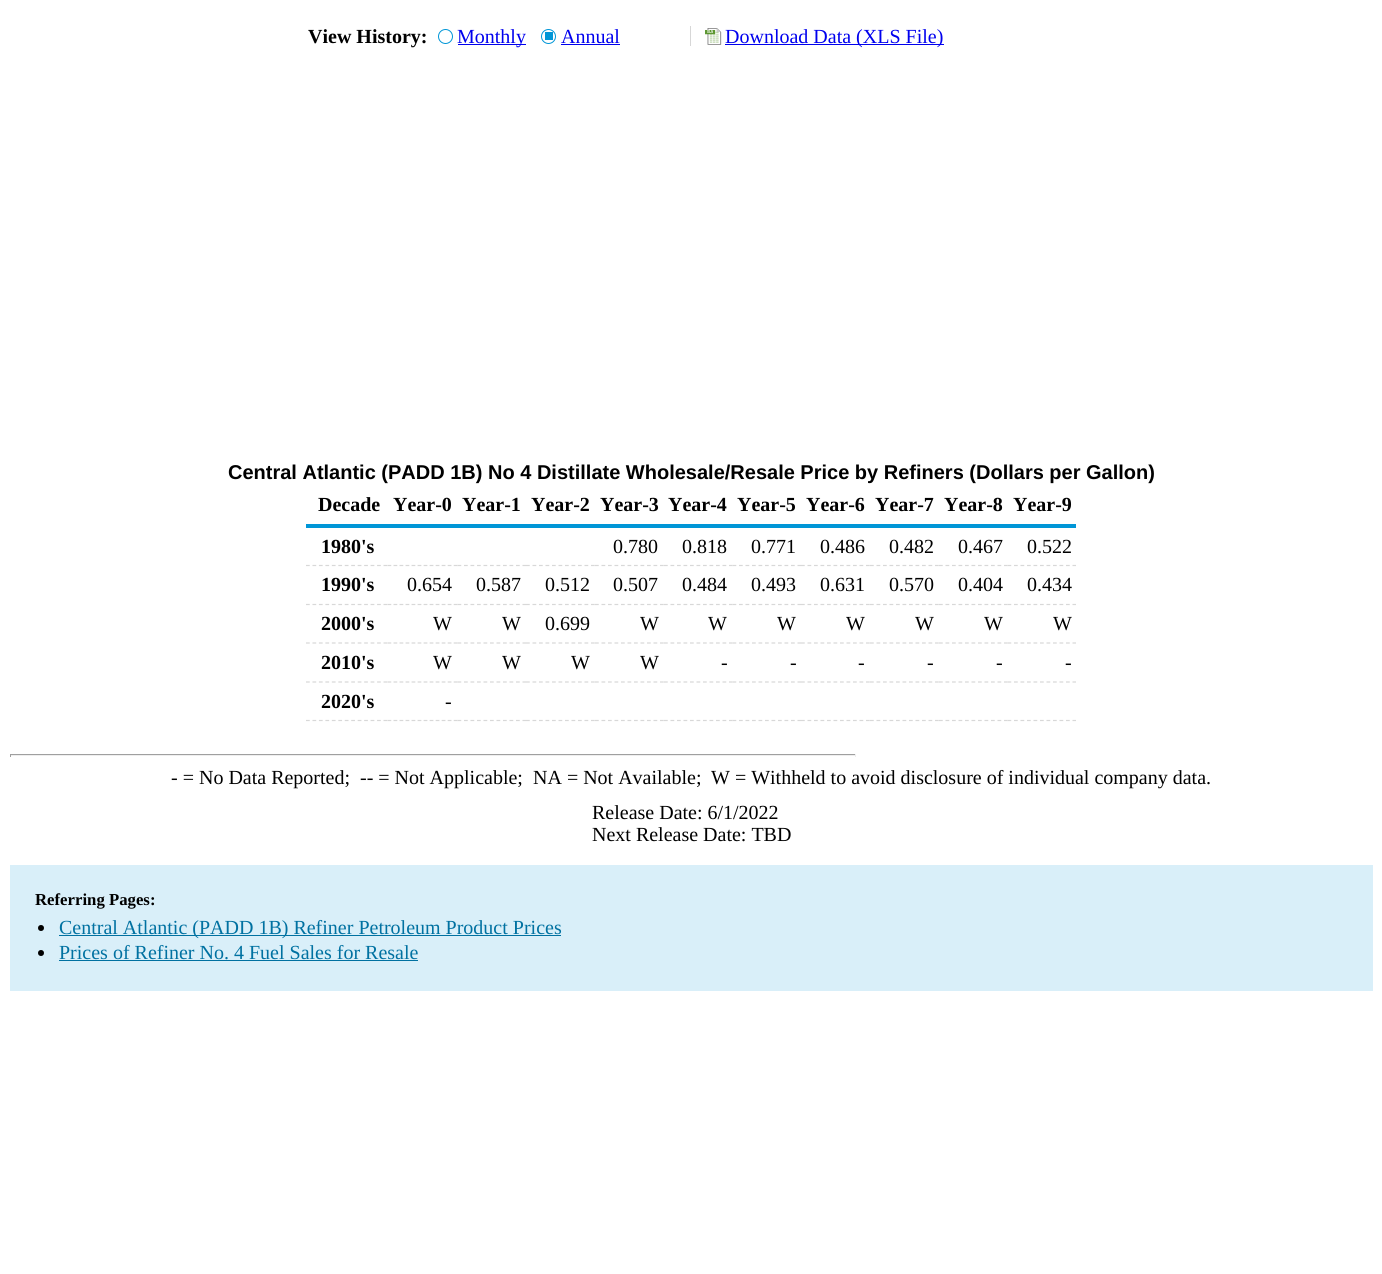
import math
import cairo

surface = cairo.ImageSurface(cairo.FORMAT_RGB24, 1382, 1274)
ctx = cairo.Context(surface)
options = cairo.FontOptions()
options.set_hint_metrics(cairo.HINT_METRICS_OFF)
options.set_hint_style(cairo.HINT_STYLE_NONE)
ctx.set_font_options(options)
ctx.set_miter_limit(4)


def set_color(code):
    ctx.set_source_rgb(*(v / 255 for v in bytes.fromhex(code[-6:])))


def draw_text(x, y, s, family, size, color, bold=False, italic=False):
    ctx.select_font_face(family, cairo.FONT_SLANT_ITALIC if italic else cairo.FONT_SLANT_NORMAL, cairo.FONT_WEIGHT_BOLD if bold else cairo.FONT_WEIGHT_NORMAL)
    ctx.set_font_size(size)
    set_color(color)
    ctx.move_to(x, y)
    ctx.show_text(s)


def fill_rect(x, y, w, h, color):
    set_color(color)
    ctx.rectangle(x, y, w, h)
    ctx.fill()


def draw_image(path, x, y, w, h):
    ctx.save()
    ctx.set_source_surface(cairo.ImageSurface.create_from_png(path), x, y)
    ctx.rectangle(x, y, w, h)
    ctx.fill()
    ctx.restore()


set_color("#ffffff")
ctx.paint()
draw_text(308, 43, "View History:", "Liberation Serif", 20, "#000000", bold=True)
ctx.new_path()
ctx.arc(445.5, 36.5, 7, 0, 2 * math.pi)
set_color("#0096d7")
ctx.set_line_width(1)
ctx.stroke()
fill_rect(458, 44, 68, 1, "#0000ee")
draw_text(457, 43, "Monthly", "Liberation Serif", 20, "#0000ee")
fill_rect(545, 32, 8, 8, "#0096d7")
ctx.new_path()
ctx.arc(548.5, 36.5, 7, 0, 2 * math.pi)
ctx.stroke()
draw_text(561, 43, "Annual", "Liberation Serif", 20, "#0000ee")
fill_rect(561, 44, 59, 1, "#0000ee")
fill_rect(690, 26, 1, 20, "#d7d7d7")
draw_image("assets/img1.png", 705, 28, 17, 17)
fill_rect(725, 44, 219, 1, "#0000ee")
draw_text(725, 43, "Download Data (XLS File)", "Liberation Serif", 20, "#0000ee")
draw_text(228, 479, "Central Atlantic (PADD 1B) No 4 Distillate Wholesale/Resale Price by Refiners (Dollars per Gallon)", "Liberation Sans", 20, "#000000", bold=True)
fill_rect(306, 524, 770, 4, "#0096d7")
draw_text(318, 511, "Decade", "Liberation Serif", 20, "#000000", bold=True)
draw_text(393, 511, "Year-0", "Liberation Serif", 20, "#000000", bold=True)
draw_text(462, 511, "Year-1", "Liberation Serif", 20, "#000000", bold=True)
draw_text(531, 511, "Year-2", "Liberation Serif", 20, "#000000", bold=True)
draw_text(600, 511, "Year-3", "Liberation Serif", 20, "#000000", bold=True)
draw_text(668, 511, "Year-4", "Liberation Serif", 20, "#000000", bold=True)
draw_text(737, 511, "Year-5", "Liberation Serif", 20, "#000000", bold=True)
draw_text(806, 511, "Year-6", "Liberation Serif", 20, "#000000", bold=True)
draw_text(875, 511, "Year-7", "Liberation Serif", 20, "#000000", bold=True)
draw_text(944, 511, "Year-8", "Liberation Serif", 20, "#000000", bold=True)
draw_text(1013, 511, "Year-9", "Liberation Serif", 20, "#000000", bold=True)
ctx.new_path()
ctx.move_to(306, 565.5)
ctx.line_to(387.5, 565.5)
set_color("#d8d8d8")
ctx.set_line_width(1.2)
ctx.set_dash([3.75, 2.71])
ctx.stroke()
draw_text(321, 553, "1980's", "Liberation Serif", 20, "#000000", bold=True)
ctx.new_path()
ctx.move_to(595, 565.5)
ctx.line_to(664, 565.5)
set_color("#d8d8d8")
ctx.set_dash([3.75, 2.75])
ctx.stroke()
draw_text(613, 553, "0.780", "Liberation Serif", 20, "#000000")
ctx.new_path()
ctx.move_to(664, 565.5)
ctx.line_to(732.5, 565.5)
set_color("#d8d8d8")
ctx.stroke()
draw_text(682, 553, "0.818", "Liberation Serif", 20, "#000000")
ctx.new_path()
ctx.move_to(732.5, 565.5)
ctx.line_to(801, 565.5)
set_color("#d8d8d8")
ctx.stroke()
draw_text(751, 553, "0.771", "Liberation Serif", 20, "#000000")
ctx.new_path()
ctx.move_to(801, 565.5)
ctx.line_to(870, 565.5)
set_color("#d8d8d8")
ctx.stroke()
draw_text(820, 553, "0.486", "Liberation Serif", 20, "#000000")
ctx.new_path()
ctx.move_to(870, 565.5)
ctx.line_to(939, 565.5)
set_color("#d8d8d8")
ctx.stroke()
draw_text(889, 553, "0.482", "Liberation Serif", 20, "#000000")
ctx.new_path()
ctx.move_to(939, 565.5)
ctx.line_to(1007.5, 565.5)
set_color("#d8d8d8")
ctx.stroke()
draw_text(958, 553, "0.467", "Liberation Serif", 20, "#000000")
ctx.new_path()
ctx.move_to(1007.5, 565.5)
ctx.line_to(1076, 565.5)
set_color("#d8d8d8")
ctx.stroke()
draw_text(1027, 553, "0.522", "Liberation Serif", 20, "#000000")
ctx.new_path()
ctx.move_to(387.5, 565.5)
ctx.line_to(457.5, 565.5)
set_color("#d8d8d8")
ctx.set_dash([3.75, 2.27])
ctx.stroke()
ctx.new_path()
ctx.move_to(457.5, 565.5)
ctx.line_to(526, 565.5)
ctx.set_dash([3.75, 2.75])
ctx.stroke()
ctx.new_path()
ctx.move_to(526, 565.5)
ctx.line_to(595, 565.5)
ctx.stroke()
ctx.new_path()
ctx.move_to(306, 604.5)
ctx.line_to(387.5, 604.5)
ctx.set_dash([3.75, 2.71])
ctx.stroke()
draw_text(321, 591, "1990's", "Liberation Serif", 20, "#000000", bold=True)
ctx.new_path()
ctx.move_to(387.5, 604.5)
ctx.line_to(457.5, 604.5)
set_color("#d8d8d8")
ctx.set_dash([3.75, 2.27])
ctx.stroke()
draw_text(407, 591, "0.654", "Liberation Serif", 20, "#000000")
ctx.new_path()
ctx.move_to(457.5, 604.5)
ctx.line_to(526, 604.5)
set_color("#d8d8d8")
ctx.set_dash([3.75, 2.75])
ctx.stroke()
draw_text(476, 591, "0.587", "Liberation Serif", 20, "#000000")
ctx.new_path()
ctx.move_to(526, 604.5)
ctx.line_to(595, 604.5)
set_color("#d8d8d8")
ctx.stroke()
draw_text(545, 591, "0.512", "Liberation Serif", 20, "#000000")
ctx.new_path()
ctx.move_to(595, 604.5)
ctx.line_to(664, 604.5)
set_color("#d8d8d8")
ctx.stroke()
draw_text(613, 591, "0.507", "Liberation Serif", 20, "#000000")
ctx.new_path()
ctx.move_to(664, 604.5)
ctx.line_to(732.5, 604.5)
set_color("#d8d8d8")
ctx.stroke()
draw_text(682, 591, "0.484", "Liberation Serif", 20, "#000000")
ctx.new_path()
ctx.move_to(732.5, 604.5)
ctx.line_to(801, 604.5)
set_color("#d8d8d8")
ctx.stroke()
draw_text(751, 591, "0.493", "Liberation Serif", 20, "#000000")
ctx.new_path()
ctx.move_to(801, 604.5)
ctx.line_to(870, 604.5)
set_color("#d8d8d8")
ctx.stroke()
draw_text(820, 591, "0.631", "Liberation Serif", 20, "#000000")
ctx.new_path()
ctx.move_to(870, 604.5)
ctx.line_to(939, 604.5)
set_color("#d8d8d8")
ctx.stroke()
draw_text(889, 591, "0.570", "Liberation Serif", 20, "#000000")
ctx.new_path()
ctx.move_to(939, 604.5)
ctx.line_to(1007.5, 604.5)
set_color("#d8d8d8")
ctx.stroke()
draw_text(958, 591, "0.404", "Liberation Serif", 20, "#000000")
ctx.new_path()
ctx.move_to(1007.5, 604.5)
ctx.line_to(1076, 604.5)
set_color("#d8d8d8")
ctx.stroke()
draw_text(1027, 591, "0.434", "Liberation Serif", 20, "#000000")
ctx.new_path()
ctx.move_to(306, 643)
ctx.line_to(387.5, 643)
set_color("#d8d8d8")
ctx.set_dash([3.75, 2.71])
ctx.stroke()
draw_text(321, 630, "2000's", "Liberation Serif", 20, "#000000", bold=True)
ctx.new_path()
ctx.move_to(387.5, 643)
ctx.line_to(457.5, 643)
set_color("#d8d8d8")
ctx.set_dash([3.75, 2.27])
ctx.stroke()
draw_text(433, 630, "W", "Liberation Serif", 20, "#000000")
ctx.new_path()
ctx.move_to(457.5, 643)
ctx.line_to(526, 643)
set_color("#d8d8d8")
ctx.set_dash([3.75, 2.75])
ctx.stroke()
draw_text(502, 630, "W", "Liberation Serif", 20, "#000000")
ctx.new_path()
ctx.move_to(526, 643)
ctx.line_to(595, 643)
set_color("#d8d8d8")
ctx.stroke()
draw_text(545, 630, "0.699", "Liberation Serif", 20, "#000000")
ctx.new_path()
ctx.move_to(595, 643)
ctx.line_to(664, 643)
set_color("#d8d8d8")
ctx.stroke()
draw_text(640, 630, "W", "Liberation Serif", 20, "#000000")
ctx.new_path()
ctx.move_to(664, 643)
ctx.line_to(732.5, 643)
set_color("#d8d8d8")
ctx.stroke()
draw_text(708, 630, "W", "Liberation Serif", 20, "#000000")
ctx.new_path()
ctx.move_to(732.5, 643)
ctx.line_to(801, 643)
set_color("#d8d8d8")
ctx.stroke()
draw_text(777, 630, "W", "Liberation Serif", 20, "#000000")
ctx.new_path()
ctx.move_to(801, 643)
ctx.line_to(870, 643)
set_color("#d8d8d8")
ctx.stroke()
draw_text(846, 630, "W", "Liberation Serif", 20, "#000000")
ctx.new_path()
ctx.move_to(870, 643)
ctx.line_to(939, 643)
set_color("#d8d8d8")
ctx.stroke()
draw_text(915, 630, "W", "Liberation Serif", 20, "#000000")
ctx.new_path()
ctx.move_to(939, 643)
ctx.line_to(1007.5, 643)
set_color("#d8d8d8")
ctx.stroke()
draw_text(984, 630, "W", "Liberation Serif", 20, "#000000")
ctx.new_path()
ctx.move_to(1007.5, 643)
ctx.line_to(1076, 643)
set_color("#d8d8d8")
ctx.stroke()
draw_text(1053, 630, "W", "Liberation Serif", 20, "#000000")
ctx.new_path()
ctx.move_to(306, 682)
ctx.line_to(387.5, 682)
set_color("#d8d8d8")
ctx.set_dash([3.75, 2.71])
ctx.stroke()
draw_text(321, 669, "2010's", "Liberation Serif", 20, "#000000", bold=True)
ctx.new_path()
ctx.move_to(387.5, 682)
ctx.line_to(457.5, 682)
set_color("#d8d8d8")
ctx.set_dash([3.75, 2.27])
ctx.stroke()
draw_text(433, 669, "W", "Liberation Serif", 20, "#000000")
ctx.new_path()
ctx.move_to(457.5, 682)
ctx.line_to(526, 682)
set_color("#d8d8d8")
ctx.set_dash([3.75, 2.75])
ctx.stroke()
draw_text(502, 669, "W", "Liberation Serif", 20, "#000000")
ctx.new_path()
ctx.move_to(526, 682)
ctx.line_to(595, 682)
set_color("#d8d8d8")
ctx.stroke()
draw_text(571, 669, "W", "Liberation Serif", 20, "#000000")
ctx.new_path()
ctx.move_to(595, 682)
ctx.line_to(664, 682)
set_color("#d8d8d8")
ctx.stroke()
draw_text(640, 669, "W", "Liberation Serif", 20, "#000000")
ctx.new_path()
ctx.move_to(664, 682)
ctx.line_to(732.5, 682)
set_color("#d8d8d8")
ctx.stroke()
draw_text(721, 669, "-", "Liberation Serif", 20, "#000000")
ctx.new_path()
ctx.move_to(732.5, 682)
ctx.line_to(801, 682)
set_color("#d8d8d8")
ctx.stroke()
draw_text(790, 669, "-", "Liberation Serif", 20, "#000000")
ctx.new_path()
ctx.move_to(801, 682)
ctx.line_to(870, 682)
set_color("#d8d8d8")
ctx.stroke()
draw_text(858, 669, "-", "Liberation Serif", 20, "#000000")
ctx.new_path()
ctx.move_to(870, 682)
ctx.line_to(939, 682)
set_color("#d8d8d8")
ctx.stroke()
draw_text(927, 669, "-", "Liberation Serif", 20, "#000000")
ctx.new_path()
ctx.move_to(939, 682)
ctx.line_to(1007.5, 682)
set_color("#d8d8d8")
ctx.stroke()
draw_text(996, 669, "-", "Liberation Serif", 20, "#000000")
ctx.new_path()
ctx.move_to(1007.5, 682)
ctx.line_to(1076, 682)
set_color("#d8d8d8")
ctx.stroke()
draw_text(1065, 669, "-", "Liberation Serif", 20, "#000000")
ctx.new_path()
ctx.move_to(306, 720.5)
ctx.line_to(387.5, 720.5)
set_color("#d8d8d8")
ctx.set_dash([3.75, 2.71])
ctx.stroke()
draw_text(321, 708, "2020's", "Liberation Serif", 20, "#000000", bold=True)
ctx.new_path()
ctx.move_to(387.5, 720.5)
ctx.line_to(457.5, 720.5)
set_color("#d8d8d8")
ctx.set_dash([3.75, 2.27])
ctx.stroke()
draw_text(445, 708, "-", "Liberation Serif", 20, "#000000")
ctx.new_path()
ctx.move_to(457.5, 720.5)
ctx.line_to(526, 720.5)
set_color("#d8d8d8")
ctx.set_dash([3.75, 2.75])
ctx.stroke()
ctx.new_path()
ctx.move_to(526, 720.5)
ctx.line_to(595, 720.5)
ctx.stroke()
ctx.new_path()
ctx.move_to(595, 720.5)
ctx.line_to(664, 720.5)
ctx.stroke()
ctx.new_path()
ctx.move_to(664, 720.5)
ctx.line_to(732.5, 720.5)
ctx.stroke()
ctx.new_path()
ctx.move_to(732.5, 720.5)
ctx.line_to(801, 720.5)
ctx.stroke()
ctx.new_path()
ctx.move_to(801, 720.5)
ctx.line_to(870, 720.5)
ctx.stroke()
ctx.new_path()
ctx.move_to(870, 720.5)
ctx.line_to(939, 720.5)
ctx.stroke()
ctx.new_path()
ctx.move_to(939, 720.5)
ctx.line_to(1007.5, 720.5)
ctx.stroke()
ctx.new_path()
ctx.move_to(1007.5, 720.5)
ctx.line_to(1076, 720.5)
ctx.stroke()
fill_rect(10, 754, 846, 1, "#9f9f9f")
fill_rect(855, 754, 1, 3, "#eeeeee")
fill_rect(10, 755, 846, 1, "#eeeeee")
fill_rect(10, 754, 1, 3, "#9f9f9f")
draw_text(171, 784, "- = No Data Reported;", "Liberation Serif", 20, "#000000")
draw_text(360, 784, "-- = Not Applicable;", "Liberation Serif", 20, "#000000")
draw_text(533, 784, "NA = Not Available;", "Liberation Serif", 20, "#000000")
draw_text(711, 784, "W = Withheld to avoid disclosure of individual company data.", "Liberation Serif", 20, "#000000")
draw_text(592, 819, "Release Date: 6/1/2022", "Liberation Serif", 20, "#000000")
draw_text(592, 841, "Next Release Date: TBD", "Liberation Serif", 20, "#000000")
fill_rect(10, 865, 1363, 126, "#d9eff9")
draw_text(35, 905, "Referring Pages:", "Liberation Serif", 16.75, "#000000", bold=True)
ctx.new_path()
ctx.arc(41, 928, 3, 0, 2 * math.pi)
ctx.fill()
fill_rect(59, 935, 502, 1, "#0071a1")
draw_text(59, 934, "Central Atlantic (PADD 1B) Refiner Petroleum Product Prices", "Liberation Serif", 20, "#0071a1")
set_color("#000000")
ctx.new_path()
ctx.arc(41, 953, 3, 0, 2 * math.pi)
ctx.fill()
draw_text(59, 959, "Prices of Refiner No. 4 Fuel Sales for Resale", "Liberation Serif", 20, "#0071a1")
fill_rect(59, 960, 359, 1, "#0071a1")
surface.write_to_png("output.png")
